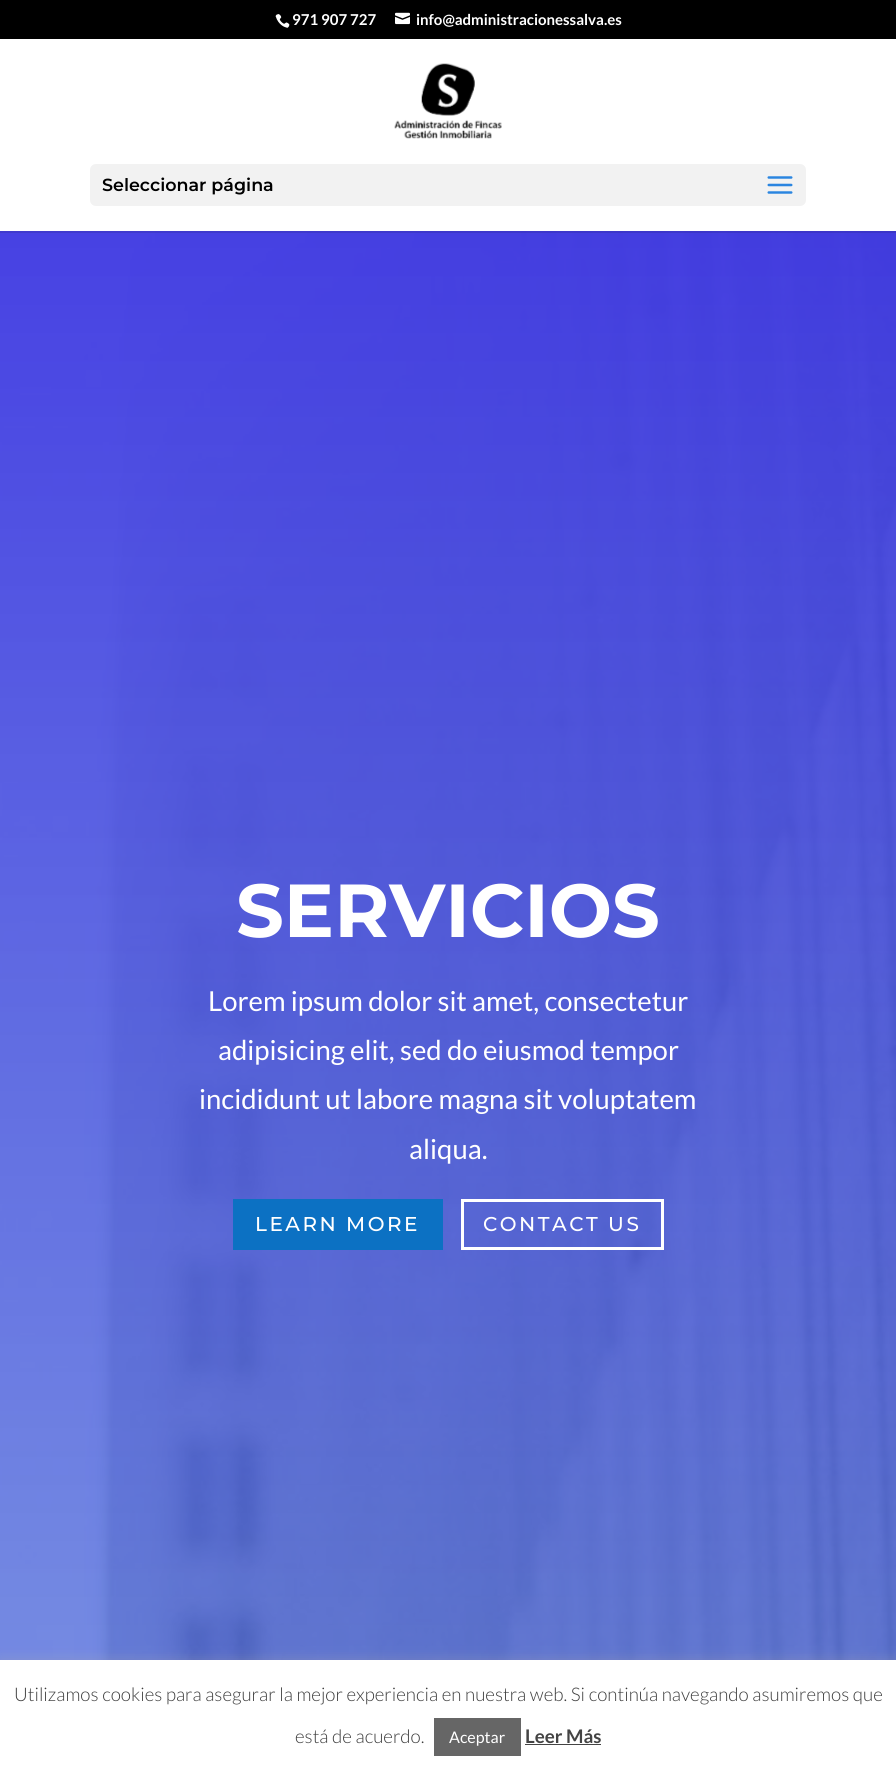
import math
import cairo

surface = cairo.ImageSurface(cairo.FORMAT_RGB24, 896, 1771)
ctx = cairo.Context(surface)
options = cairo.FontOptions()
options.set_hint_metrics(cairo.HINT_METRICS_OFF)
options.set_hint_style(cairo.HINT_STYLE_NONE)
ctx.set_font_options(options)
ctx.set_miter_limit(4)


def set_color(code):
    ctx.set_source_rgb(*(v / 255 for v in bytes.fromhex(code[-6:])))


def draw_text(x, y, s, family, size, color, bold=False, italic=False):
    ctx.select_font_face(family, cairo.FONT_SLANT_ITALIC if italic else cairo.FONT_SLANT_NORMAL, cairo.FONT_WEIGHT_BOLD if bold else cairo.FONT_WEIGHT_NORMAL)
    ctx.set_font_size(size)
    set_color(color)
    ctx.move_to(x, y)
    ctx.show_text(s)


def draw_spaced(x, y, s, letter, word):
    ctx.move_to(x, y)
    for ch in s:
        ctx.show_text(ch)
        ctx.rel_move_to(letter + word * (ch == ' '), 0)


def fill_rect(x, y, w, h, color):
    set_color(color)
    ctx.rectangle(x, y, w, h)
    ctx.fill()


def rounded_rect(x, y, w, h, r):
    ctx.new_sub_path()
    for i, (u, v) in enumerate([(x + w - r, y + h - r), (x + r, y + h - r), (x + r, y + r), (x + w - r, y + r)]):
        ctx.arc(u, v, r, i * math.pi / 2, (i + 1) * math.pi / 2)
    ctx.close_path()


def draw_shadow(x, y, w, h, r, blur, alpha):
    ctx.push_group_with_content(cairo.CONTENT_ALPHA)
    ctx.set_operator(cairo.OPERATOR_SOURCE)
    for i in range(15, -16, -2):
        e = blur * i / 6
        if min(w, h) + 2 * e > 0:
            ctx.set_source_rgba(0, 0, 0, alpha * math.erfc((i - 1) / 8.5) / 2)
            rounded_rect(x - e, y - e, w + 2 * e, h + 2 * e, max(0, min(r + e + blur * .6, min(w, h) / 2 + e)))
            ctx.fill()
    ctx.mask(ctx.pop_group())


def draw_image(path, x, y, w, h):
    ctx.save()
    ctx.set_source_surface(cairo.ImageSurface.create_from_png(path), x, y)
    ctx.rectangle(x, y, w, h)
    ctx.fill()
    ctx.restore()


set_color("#ffffff")
ctx.paint()
fill_rect(0, 0, 896, 39, "#000000")
draw_image("assets/img1.png", 275, 14, 15, 14)
draw_text(292, 25, "971 907 727", "Lato", 15, "#ffffff", bold=True)
draw_image("assets/img2.png", 395, 12, 15, 13)
draw_text(416, 25, "info@administracionessalva.es", "Lato", 15, "#ffffff", bold=True)
draw_image("assets/img5.png", 0, 231, 896, 1429)
ctx.set_source_rgba(0, 0, 0, 0.1)
ctx.rectangle(0, 231, 896, 2)
ctx.fill()
draw_image("assets/img3.png", 394, 63, 108, 76)
set_color("#f2f2f2")
rounded_rect(90, 164, 716, 42, 6)
ctx.fill()
draw_text(102, 191, "Seleccionar página", "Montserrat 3 Thin", 17.5, "#000000")
draw_image("assets/img4.png", 767, 176, 26, 18)
draw_text(236, 937, "SERVICIOS", "Montserrat Thin", 75, "#ffffff")
draw_text(208, 1011, "Lorem ipsum dolor sit amet, consectetur", "Lato", 27.5, "#ffffff")
draw_text(218, 1060, "adipisicing elit, sed do eiusmod tempor", "Lato", 27.5, "#ffffff")
draw_text(199, 1109, "incididunt ut labore magna sit voluptatem", "Lato", 27.5, "#ffffff")
draw_text(409, 1159, "aliqua.", "Lato", 27.5, "#ffffff")
fill_rect(233, 1199, 210, 51, "#0c71c3")
ctx.select_font_face("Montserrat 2 Thin")
ctx.set_font_size(20)
set_color("#ffffff")
draw_spaced(255, 1231, "LEARN MORE", 2.5, 0)
ctx.rectangle(462.5, 1200.5, 200, 48)
ctx.set_line_width(3)
ctx.stroke()
draw_spaced(483, 1231, "CONTACT US", 2.5, 0)
set_color("#acabab")
draw_shadow(0, 1659, 896, 111, 0, 6, 0.3)
fill_rect(0, 1660, 896, 111, "#ffffff")
draw_text(14, 1701, "Utilizamos cookies para asegurar la mejor experiencia en nuestra web. Si continúa navegando asumiremos que", "Lato Light", 18.75, "#3d3d3d")
draw_text(295, 1743, "está de acuerdo.", "Lato Light", 18.75, "#3d3d3d")
fill_rect(434, 1718, 87, 38, "#666666")
draw_text(449, 1743, "Aceptar", "Lato", 16, "#ffffff")
draw_text(525, 1743, "Leer Más", "Lato", 18.75, "#444444", bold=True)
fill_rect(525, 1744, 76, 1, "#444444")
surface.write_to_png("output.png")
